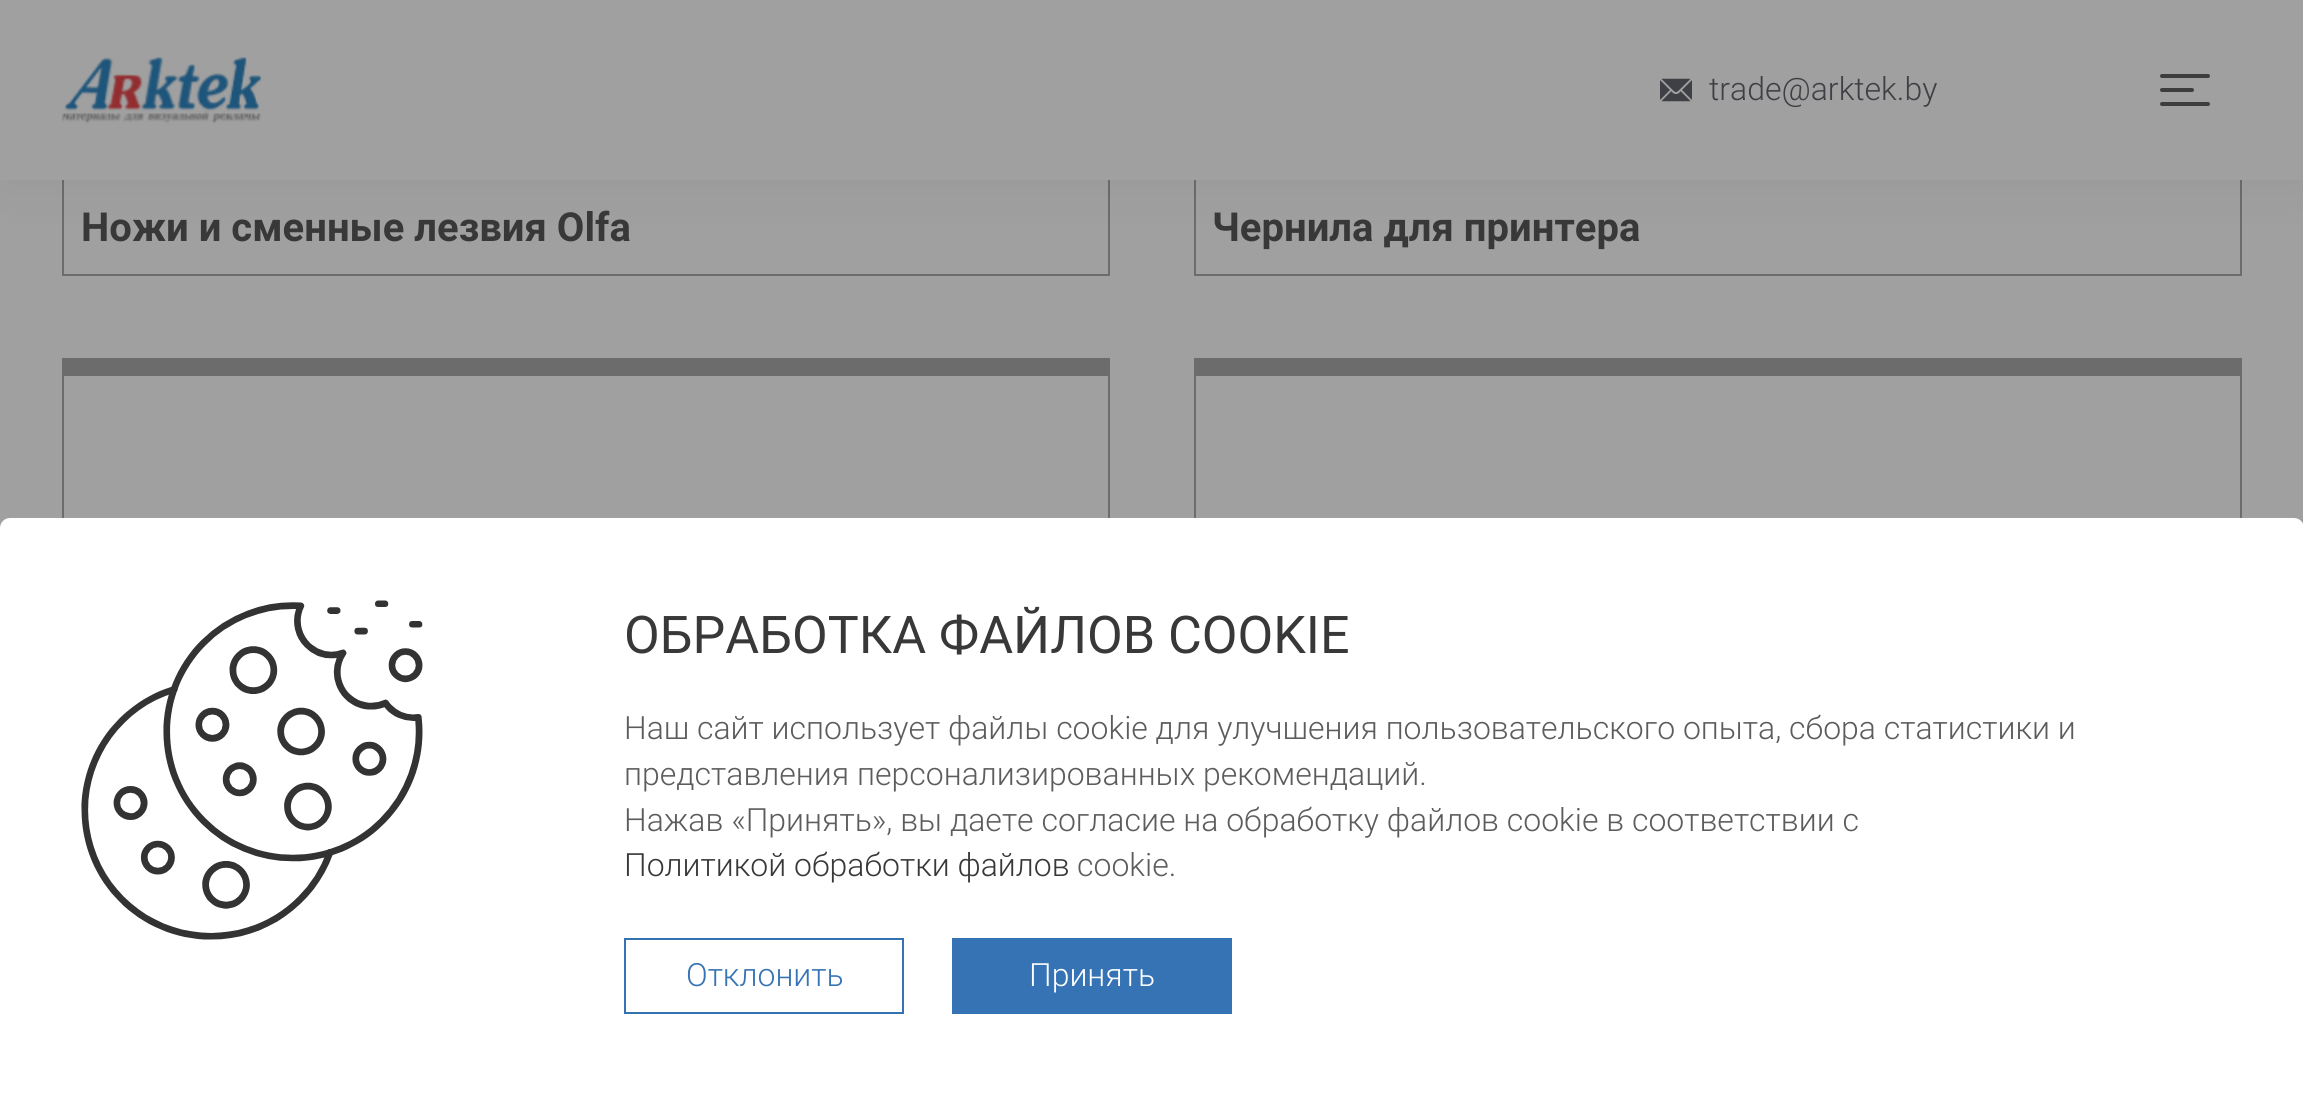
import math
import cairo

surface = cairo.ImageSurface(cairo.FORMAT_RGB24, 2303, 1093)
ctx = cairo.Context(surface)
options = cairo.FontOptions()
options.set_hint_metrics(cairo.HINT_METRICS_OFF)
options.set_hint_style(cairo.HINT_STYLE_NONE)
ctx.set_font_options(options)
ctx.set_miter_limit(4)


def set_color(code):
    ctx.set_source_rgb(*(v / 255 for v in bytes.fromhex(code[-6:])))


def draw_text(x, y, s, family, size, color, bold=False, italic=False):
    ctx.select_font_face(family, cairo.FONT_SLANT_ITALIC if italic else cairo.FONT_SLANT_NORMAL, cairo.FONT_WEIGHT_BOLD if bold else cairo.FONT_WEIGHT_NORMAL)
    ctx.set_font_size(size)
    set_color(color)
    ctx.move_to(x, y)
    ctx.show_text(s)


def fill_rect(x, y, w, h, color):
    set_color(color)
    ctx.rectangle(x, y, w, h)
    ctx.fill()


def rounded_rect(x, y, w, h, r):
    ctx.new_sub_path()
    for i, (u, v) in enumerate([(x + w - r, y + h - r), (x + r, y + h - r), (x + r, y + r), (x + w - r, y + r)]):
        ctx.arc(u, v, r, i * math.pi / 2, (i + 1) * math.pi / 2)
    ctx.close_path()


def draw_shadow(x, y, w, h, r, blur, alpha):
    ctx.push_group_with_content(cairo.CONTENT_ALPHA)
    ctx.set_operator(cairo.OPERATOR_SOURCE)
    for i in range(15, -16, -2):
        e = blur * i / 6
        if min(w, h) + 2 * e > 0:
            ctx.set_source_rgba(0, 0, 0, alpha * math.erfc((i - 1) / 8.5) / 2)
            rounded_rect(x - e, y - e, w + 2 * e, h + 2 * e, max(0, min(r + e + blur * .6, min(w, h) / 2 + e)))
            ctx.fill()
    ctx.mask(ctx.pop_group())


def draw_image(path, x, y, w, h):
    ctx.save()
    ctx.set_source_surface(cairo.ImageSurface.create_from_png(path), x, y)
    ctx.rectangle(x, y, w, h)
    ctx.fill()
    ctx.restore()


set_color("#a0a0a0")
ctx.paint()
ctx.rectangle(63, -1, 1046, 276)
set_color("#6c6c6c")
ctx.stroke()
ctx.rectangle(1195, -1, 1046, 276)
ctx.stroke()
set_color("#1e1e1e")
draw_shadow(0, 0, 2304, 180, 0, 30, 0.08)
fill_rect(0, 0, 2303, 180, "#a0a0a0")
draw_image("assets/img1.png", 62, 57, 201, 67)
draw_image("assets/img2.png", 1660, 78, 32, 24)
draw_text(1709, 100, "trade@arktek.by", "Roboto Light", 32, "#3f4045")
set_color("#3d3d3d")
rounded_rect(2160, 74, 50, 4, 2)
ctx.fill()
rounded_rect(2160, 88, 34, 4, 2)
ctx.fill()
rounded_rect(2160, 102, 50, 4, 2)
ctx.fill()
draw_text(81, 241, "Ножи и сменные лезвия Olfa", "Roboto", 40, "#383838", bold=True)
draw_text(1212, 241, "Чернила для принтера", "Roboto", 40, "#383838", bold=True)
ctx.rectangle(63, 359, 1046, 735)
set_color("#6c6c6c")
ctx.stroke()
fill_rect(64, 360, 1044, 16, "#6c6c6c")
ctx.rectangle(1195, 359, 1046, 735)
ctx.stroke()
fill_rect(1196, 360, 1044, 16, "#6c6c6c")
set_color("#ffffff")
ctx.new_path()
ctx.move_to(10, 518)
ctx.line_to(2294, 518)
ctx.curve_to(2299.5, 518, 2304, 522.5, 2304, 528)
ctx.line_to(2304, 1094)
ctx.line_to(0, 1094)
ctx.line_to(0, 528)
ctx.curve_to(0, 522.5, 4.5, 518, 10, 518)
ctx.close_path()
ctx.fill()
draw_image("assets/img3.png", 81, 600, 342, 340)
draw_text(624, 653, "ОБРАБОТКА ФАЙЛОВ COOKIE", "Roboto", 52, "#383838")
draw_text(624, 739, "Наш сайт использует файлы cookie для улучшения пользовательского опыта, сбора статистики и", "Roboto Light", 32, "#5c5c5c")
draw_text(624, 785, "представления персонализированных рекомендаций.", "Roboto Light", 32, "#5c5c5c")
draw_text(624, 831, "Нажав «Принять», вы даете согласие на обработку файлов cookie в соответствии с", "Roboto Light", 32, "#5c5c5c")
draw_text(624, 876, "Политикой обработки файлов", "Roboto Light", 32, "#383838")
draw_text(1077, 876, "cookie.", "Roboto Light", 32, "#5c5c5c")
ctx.rectangle(625, 939, 278, 74)
set_color("#3573b4")
ctx.stroke()
draw_text(686, 986, "Отклонить", "Roboto Light", 32, "#3573b4")
fill_rect(952, 938, 280, 76, "#3573b4")
draw_text(1029, 986, "Принять", "Roboto Light", 32, "#ffffff")
surface.write_to_png("output.png")
